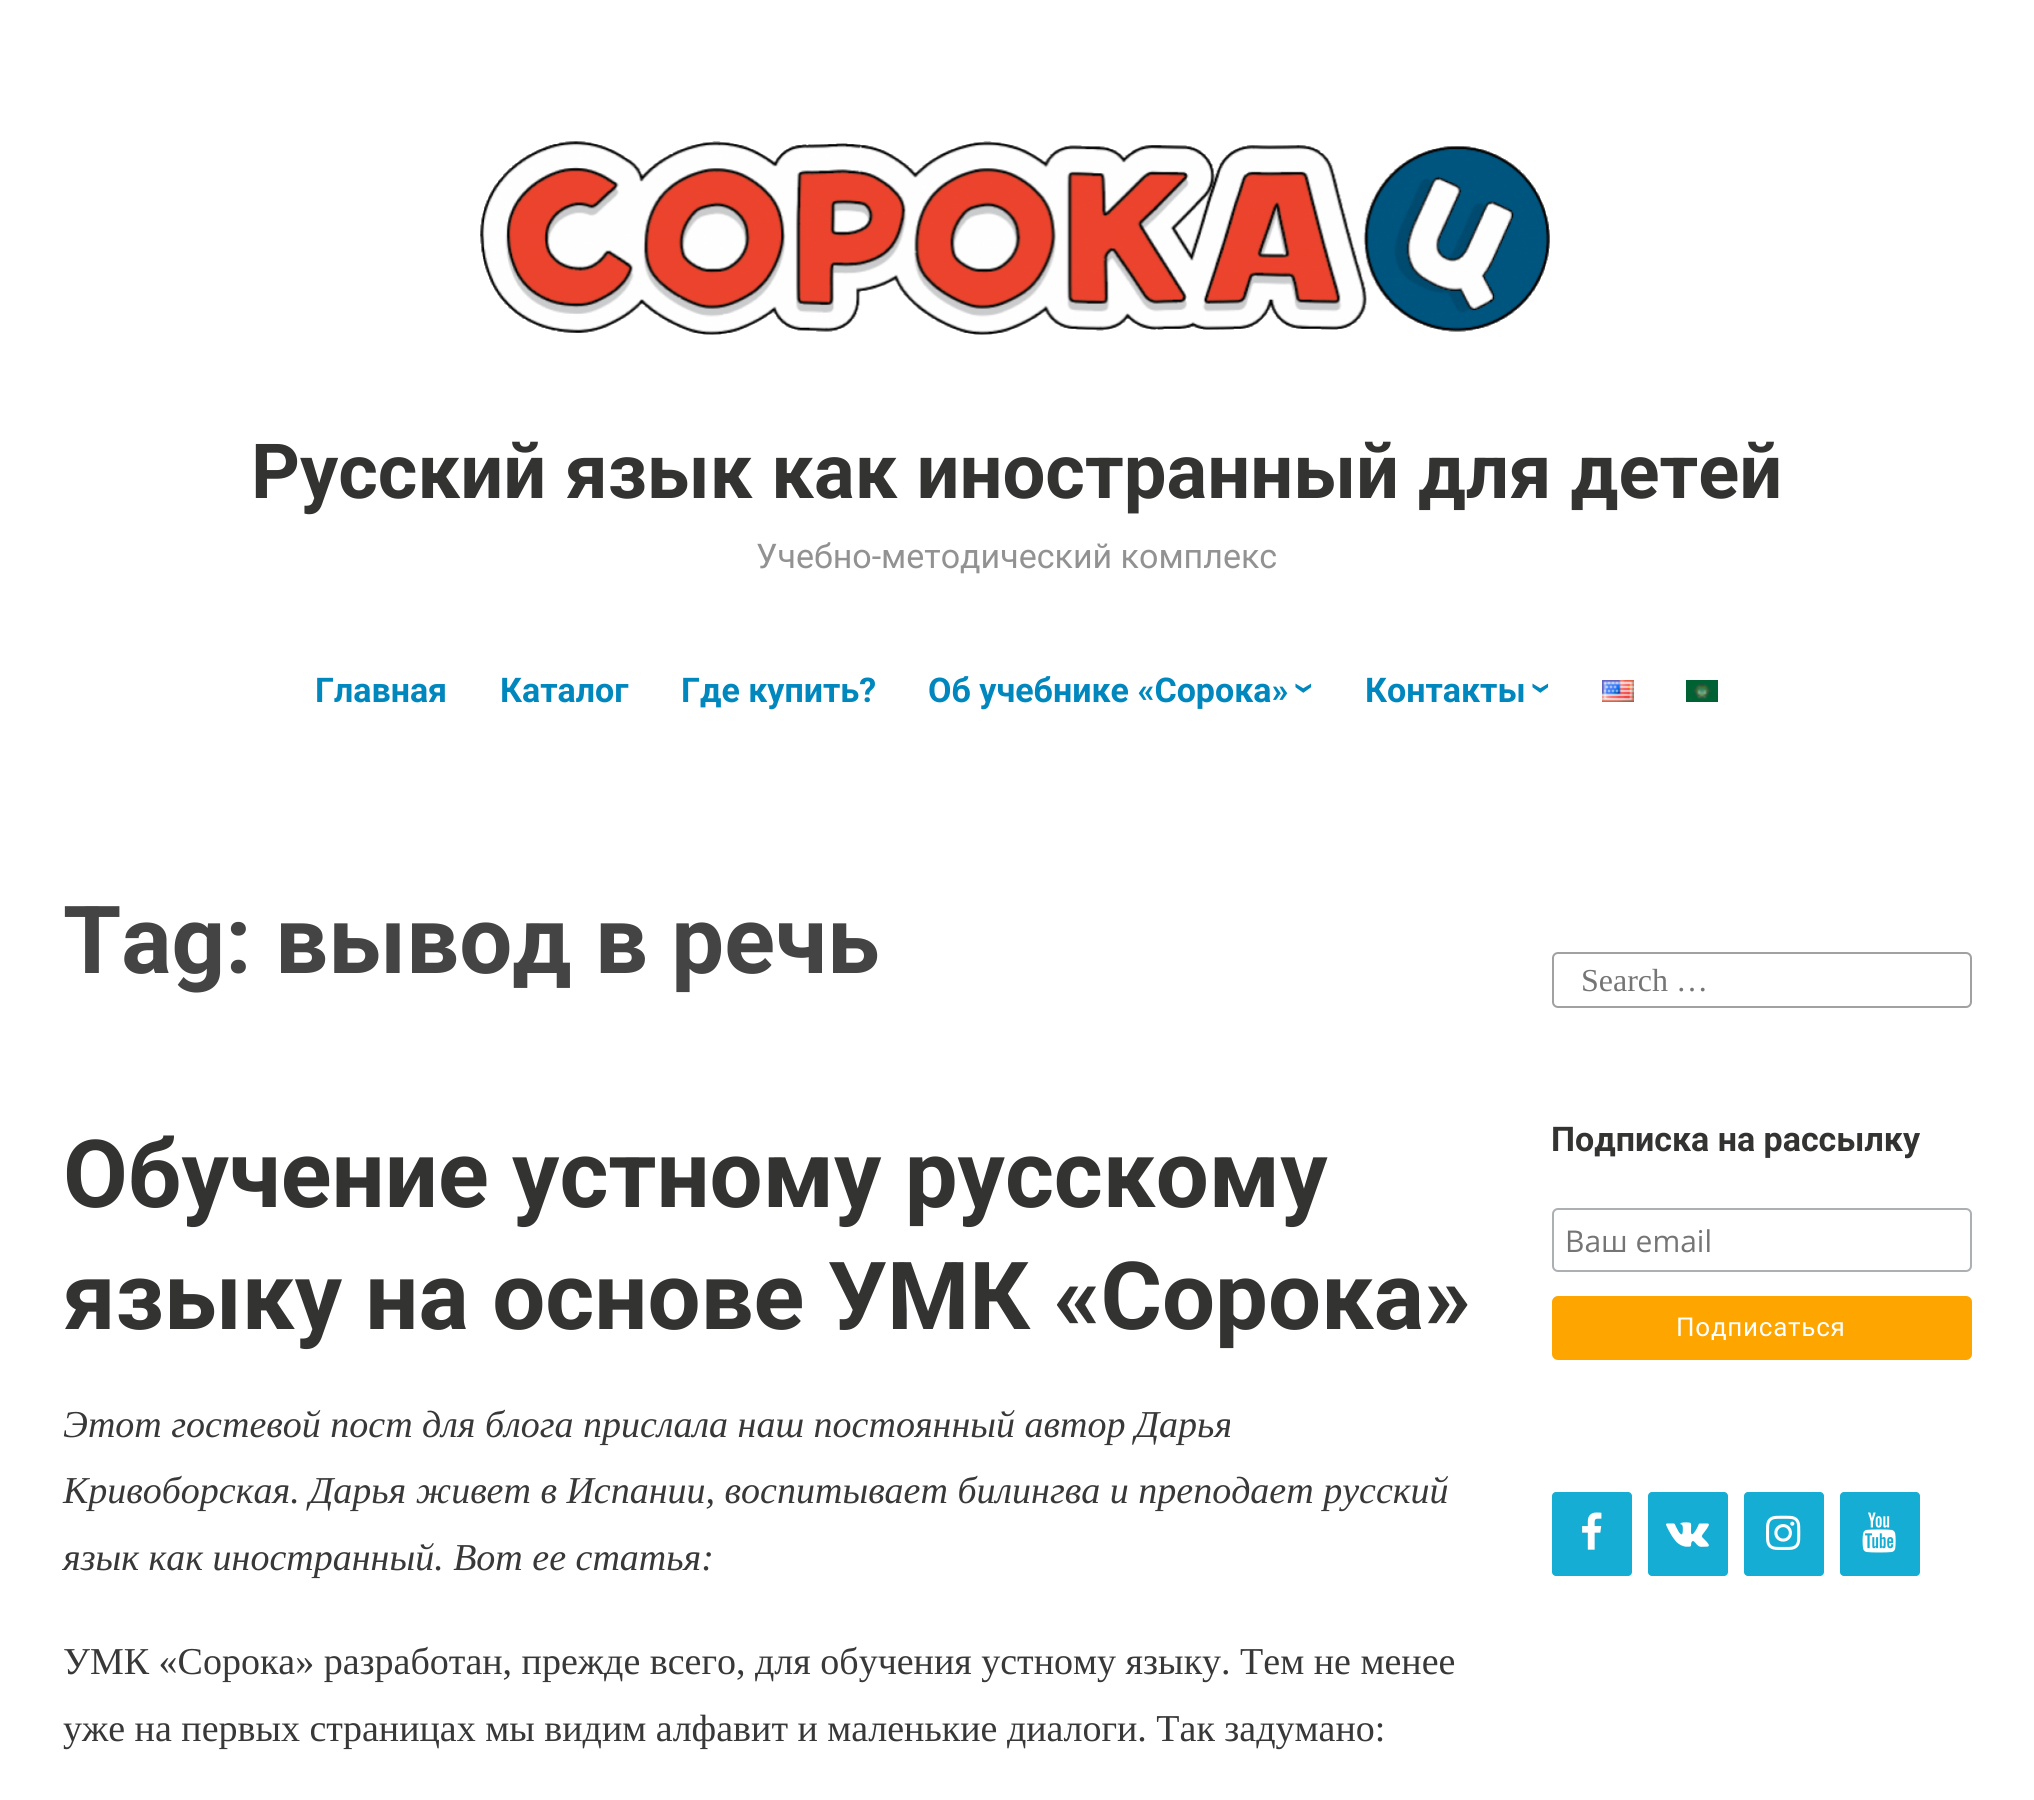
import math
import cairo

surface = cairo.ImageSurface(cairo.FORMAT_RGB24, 2034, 1800)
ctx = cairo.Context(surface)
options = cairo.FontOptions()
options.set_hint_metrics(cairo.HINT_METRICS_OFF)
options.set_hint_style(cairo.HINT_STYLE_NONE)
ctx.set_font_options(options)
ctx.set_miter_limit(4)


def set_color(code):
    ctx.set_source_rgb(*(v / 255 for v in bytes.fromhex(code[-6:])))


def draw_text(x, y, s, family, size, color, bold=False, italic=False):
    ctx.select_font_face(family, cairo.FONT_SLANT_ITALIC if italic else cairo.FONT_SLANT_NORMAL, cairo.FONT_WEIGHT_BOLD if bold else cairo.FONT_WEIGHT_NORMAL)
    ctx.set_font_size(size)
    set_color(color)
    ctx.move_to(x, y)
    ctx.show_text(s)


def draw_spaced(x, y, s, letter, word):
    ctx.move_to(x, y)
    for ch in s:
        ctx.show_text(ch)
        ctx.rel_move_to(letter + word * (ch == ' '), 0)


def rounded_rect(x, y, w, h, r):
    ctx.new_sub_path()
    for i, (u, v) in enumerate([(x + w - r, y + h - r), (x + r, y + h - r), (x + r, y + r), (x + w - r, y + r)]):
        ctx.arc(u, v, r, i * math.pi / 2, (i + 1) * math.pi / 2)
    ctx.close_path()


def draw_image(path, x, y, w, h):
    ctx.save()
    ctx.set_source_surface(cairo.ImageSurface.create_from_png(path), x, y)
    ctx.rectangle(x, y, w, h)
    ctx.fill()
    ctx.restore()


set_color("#ffffff")
ctx.paint()
draw_image("assets/img1.png", 480, 141, 1070, 194)
draw_text(251, 498, "Русский язык как иностранный для детей", "Roboto", 76, "#333332", bold=True)
draw_text(756, 568, "Учебно-методический комплекс", "Roboto", 34, "#929292")
draw_text(315, 702, "Главная", "Roboto", 34, "#0087be", bold=True)
draw_text(500, 702, "Каталог", "Roboto", 34, "#0087be", bold=True)
draw_text(681, 702, "Где купить?", "Roboto", 34, "#0087be", bold=True)
draw_text(928, 702, "Об учебнике «Сорока»", "Roboto", 34, "#0087be", bold=True)
ctx.save()
ctx.translate(1293, 682)
ctx.rotate(90 * math.pi / 180)
draw_text(0, 0, "›", "Roboto", 40, "#0087be", bold=True)
ctx.restore()
draw_text(1365, 702, "Контакты", "Roboto", 34, "#0087be", bold=True)
ctx.save()
ctx.translate(1530, 682)
ctx.rotate(90 * math.pi / 180)
draw_text(0, 0, "›", "Roboto", 40, "#0087be", bold=True)
ctx.restore()
draw_image("assets/img2.png", 1602, 680, 32, 22)
draw_image("assets/img3.png", 1686, 680, 32, 22)
draw_text(63, 973, "Tag: вывод в речь", "Roboto", 94, "#444444", bold=True)
draw_text(63, 1207, "Обучение устному русскому", "Roboto", 94, "#333332", bold=True)
draw_text(63, 1329, "языку на основе УМК «Сорока»", "Roboto", 94, "#333332", bold=True)
draw_text(63, 1437, "Этот гостевой пост для блога прислала наш постоянный автор Дарья", "Liberation Serif", 38, "#383838", italic=True)
draw_text(63, 1503, "Кривоборская. Дарья живет в Испании, воспитывает билингва и преподает русский", "Liberation Serif", 38, "#383838", italic=True)
draw_text(63, 1570, "язык как иностранный. Вот ее статья:", "Liberation Serif", 38, "#383838", italic=True)
draw_text(63, 1674, "УМК «Сорока» разработан, прежде всего, для обучения устному языку. Тем не менее", "Liberation Serif", 38, "#383838")
draw_text(63, 1741, "уже на первых страницах мы видим алфавит и маленькие диалоги. Так задумано:", "Liberation Serif", 38, "#383838")
rounded_rect(1553, 953, 418, 54, 5)
set_color("#a1a1a1")
ctx.stroke()
draw_text(1581, 991, "Search …", "Liberation Serif", 32, "#757575")
draw_text(1551, 1151, "Подписка на рассылку", "Roboto", 34, "#333332", bold=True)
rounded_rect(1553, 1209, 418, 62, 5)
set_color("#abb0b2")
ctx.stroke()
draw_text(1565, 1252, "Ваш email", "Open Sans", 30, "#757575")
set_color("#ffa500")
rounded_rect(1552, 1296, 420, 64, 6)
ctx.fill()
ctx.select_font_face("Roboto")
ctx.set_font_size(26)
set_color("#ffffff")
draw_spaced(1676, 1336, "Подписаться", 0.75, 0)
set_color("#15add3")
rounded_rect(1552, 1492, 80, 84, 4)
ctx.fill()
draw_image("assets/img4.png", 1582, 1512, 20, 38)
rounded_rect(1648, 1492, 80, 84, 4)
ctx.fill()
draw_image("assets/img5.png", 1666, 1522, 43, 25)
rounded_rect(1744, 1492, 80, 84, 4)
ctx.fill()
draw_image("assets/img6.png", 1766, 1515, 35, 35)
rounded_rect(1840, 1492, 80, 84, 4)
ctx.fill()
draw_image("assets/img7.png", 1862, 1512, 34, 41)
surface.write_to_png("output.png")
